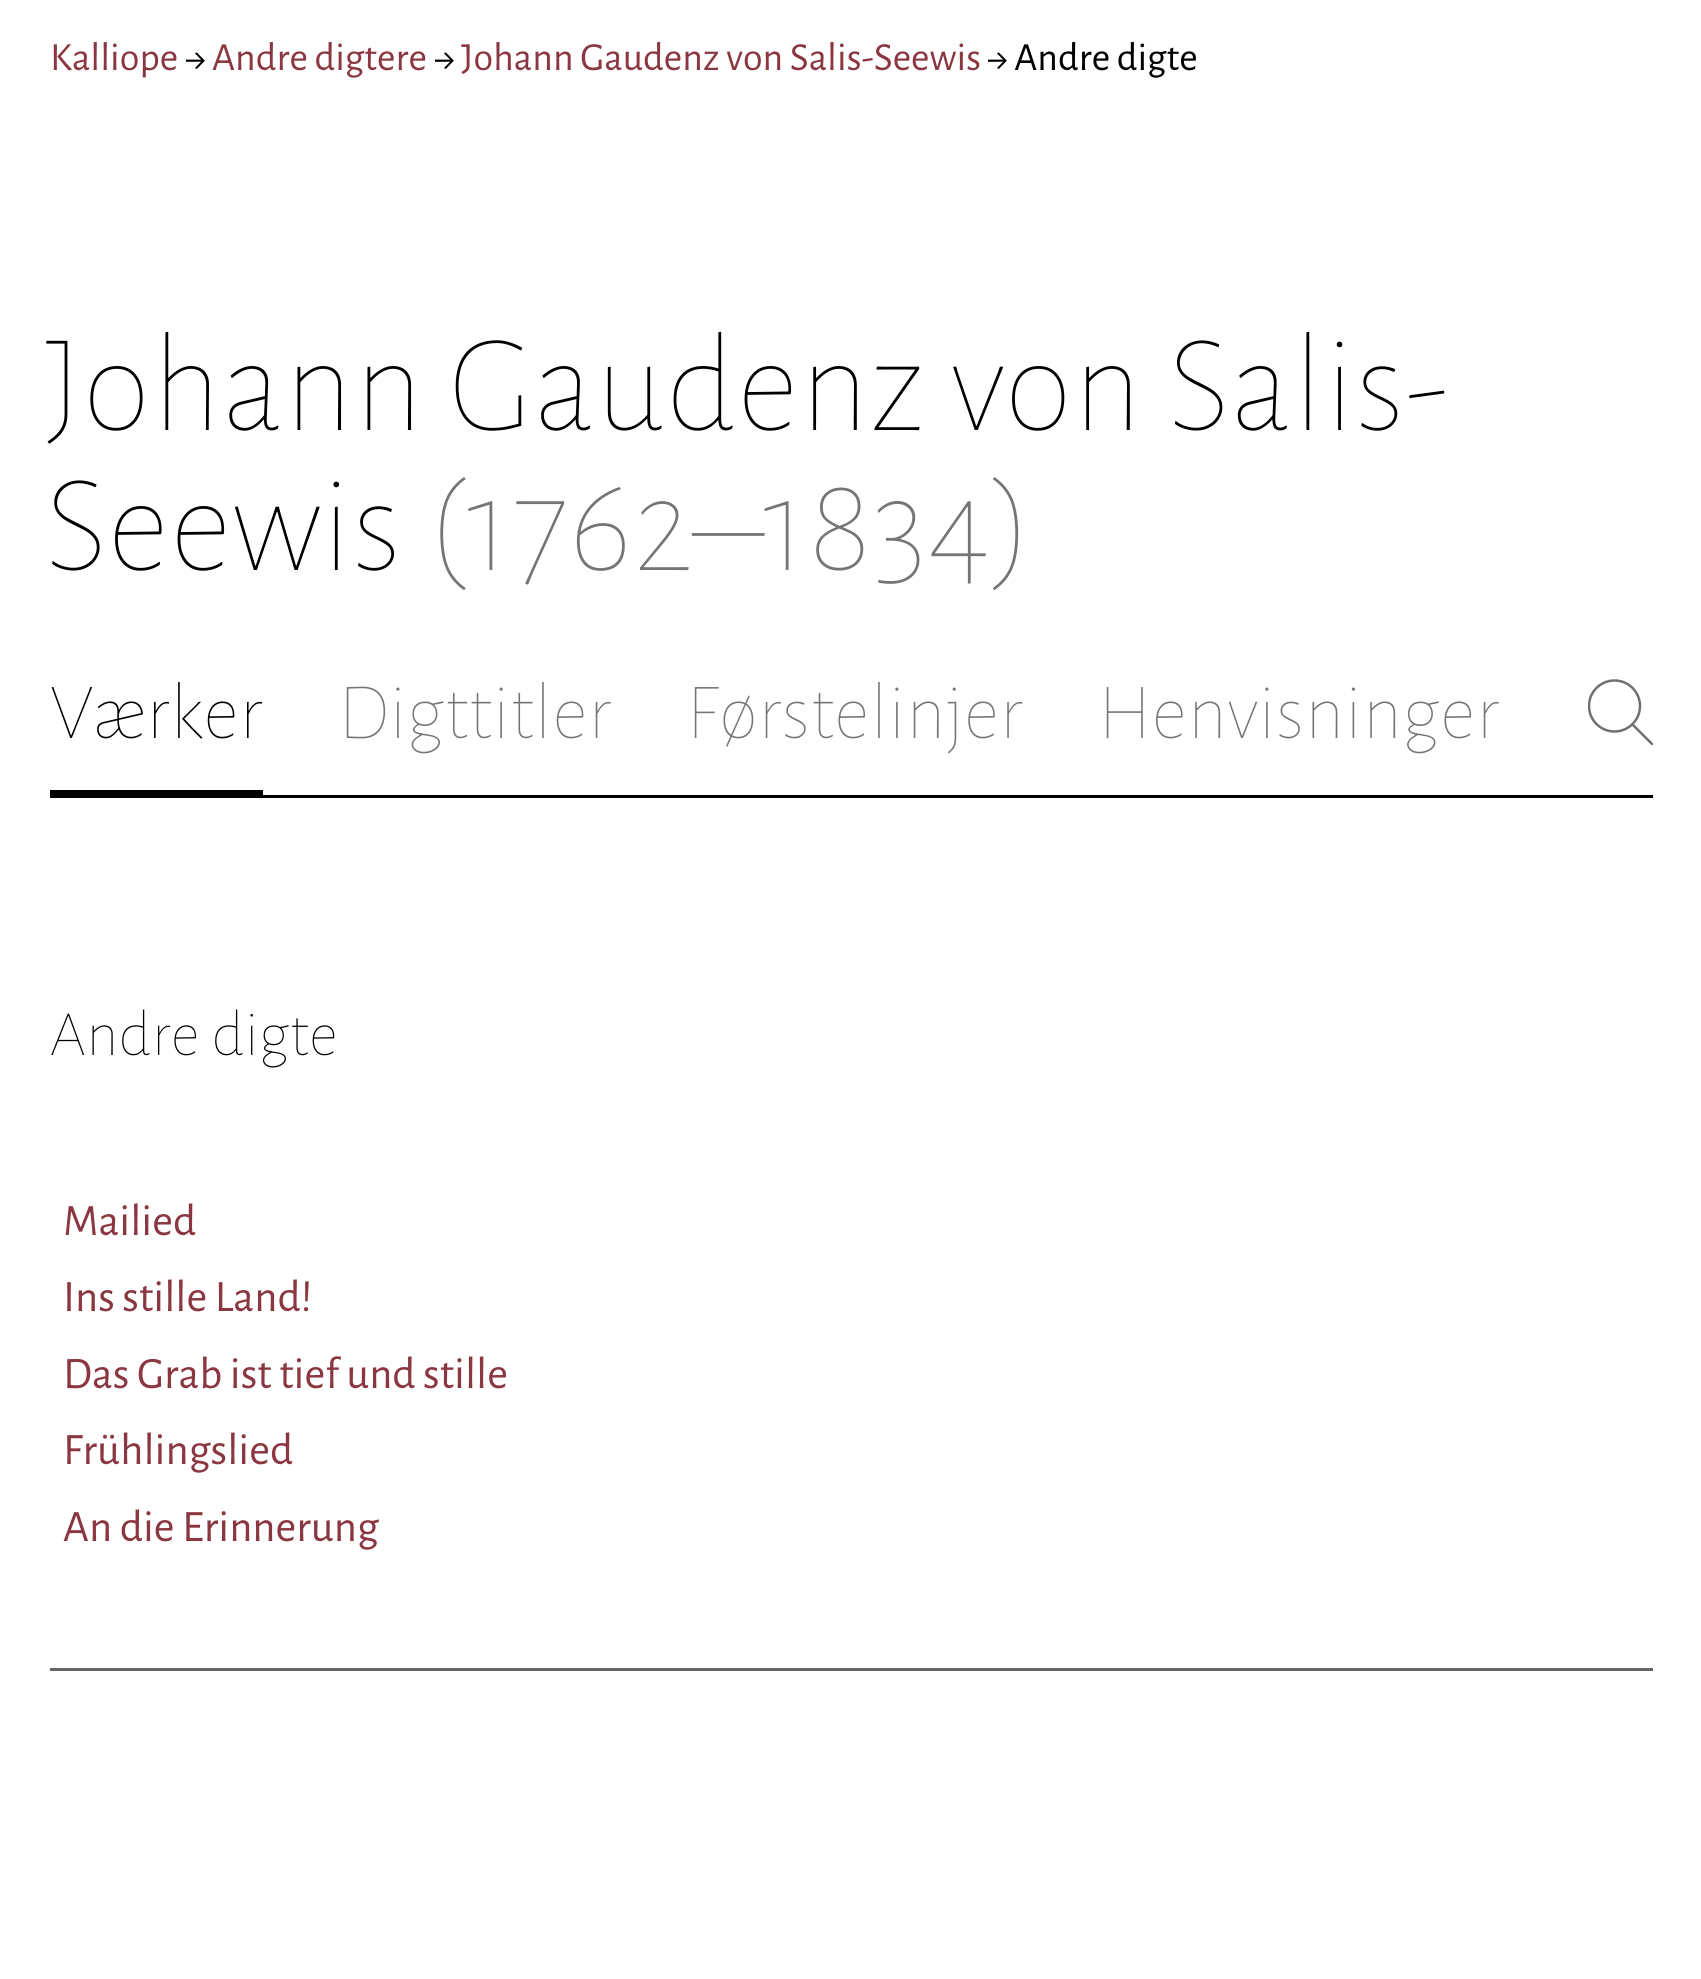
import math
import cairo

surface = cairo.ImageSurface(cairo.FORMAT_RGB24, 1701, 1979)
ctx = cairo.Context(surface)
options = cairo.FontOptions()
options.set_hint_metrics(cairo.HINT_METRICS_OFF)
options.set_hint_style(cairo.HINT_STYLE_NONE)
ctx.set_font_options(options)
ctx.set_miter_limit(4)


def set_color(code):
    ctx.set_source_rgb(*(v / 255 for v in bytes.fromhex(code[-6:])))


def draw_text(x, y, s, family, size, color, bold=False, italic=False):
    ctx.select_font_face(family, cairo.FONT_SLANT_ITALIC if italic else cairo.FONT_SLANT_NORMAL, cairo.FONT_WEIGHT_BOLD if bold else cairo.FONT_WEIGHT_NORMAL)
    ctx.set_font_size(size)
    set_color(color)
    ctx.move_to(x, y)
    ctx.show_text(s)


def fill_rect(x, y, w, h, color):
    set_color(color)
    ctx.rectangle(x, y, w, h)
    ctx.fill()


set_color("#ffffff")
ctx.paint()
draw_text(50, 70, "Kalliope", "Alegreya Sans", 40, "#8b3741")
draw_text(185, 70, "→", "Alegreya Sans", 40, "#000000")
draw_text(212, 70, "Andre digtere", "Alegreya Sans", 40, "#8b3741")
draw_text(434, 70, "→", "Alegreya Sans", 40, "#000000")
draw_text(461, 70, "Johann Gaudenz von Salis-Seewis", "Alegreya Sans", 40, "#8b3741")
draw_text(987, 70, "→ Andre digte", "Alegreya Sans", 40, "#000000")
draw_text(45, 430, "Johann Gaudenz von Salis-", "Alegreya Sans ExtraLight", 140, "#000000")
draw_text(45, 570, "Seewis", "Alegreya Sans ExtraLight", 140, "#000000")
draw_text(427, 570, "(1762–1834)", "Alegreya Sans ExtraLight", 140, "#757575")
fill_rect(50, 795, 1603, 3, "#000000")
fill_rect(50, 790, 213, 5, "#000000")
draw_text(50, 738, "Værker", "Alegreya Sans ExtraLight", 80, "#000000")
draw_text(338, 738, "Digttitler", "Alegreya Sans ExtraLight", 80, "#757575")
draw_text(686, 738, "Førstelinjer", "Alegreya Sans ExtraLight", 80, "#757575")
draw_text(1098, 738, "Henvisninger", "Alegreya Sans ExtraLight", 80, "#757575")
ctx.save()
ctx.rectangle(1588, 673, 65, 72)
ctx.clip()
ctx.arc(1614.5, 706, 25.5, 0, 2 * math.pi)
set_color("#707070")
ctx.set_line_width(2.5)
ctx.stroke()
ctx.new_path()
ctx.move_to(1652, 744)
ctx.line_to(1633, 725)
ctx.set_line_cap(cairo.LINE_CAP_ROUND)
ctx.set_line_join(cairo.LINE_JOIN_ROUND)
ctx.stroke()
ctx.restore()
draw_text(50, 1055, "Andre digte", "Alegreya Sans ExtraLight", 65, "#000000")
draw_text(63, 1235, "Mailied", "Alegreya Sans", 45, "#8b3741")
draw_text(63, 1311, "Ins stille Land!", "Alegreya Sans", 45, "#8b3741")
draw_text(63, 1388, "Das Grab ist tief und stille", "Alegreya Sans", 45, "#8b3741")
draw_text(63, 1464, "Frühlingslied", "Alegreya Sans", 45, "#8b3741")
draw_text(63, 1541, "An die Erinnerung", "Alegreya Sans", 45, "#8b3741")
fill_rect(50, 1668, 1603, 3, "#666666")
surface.write_to_png("output.png")
